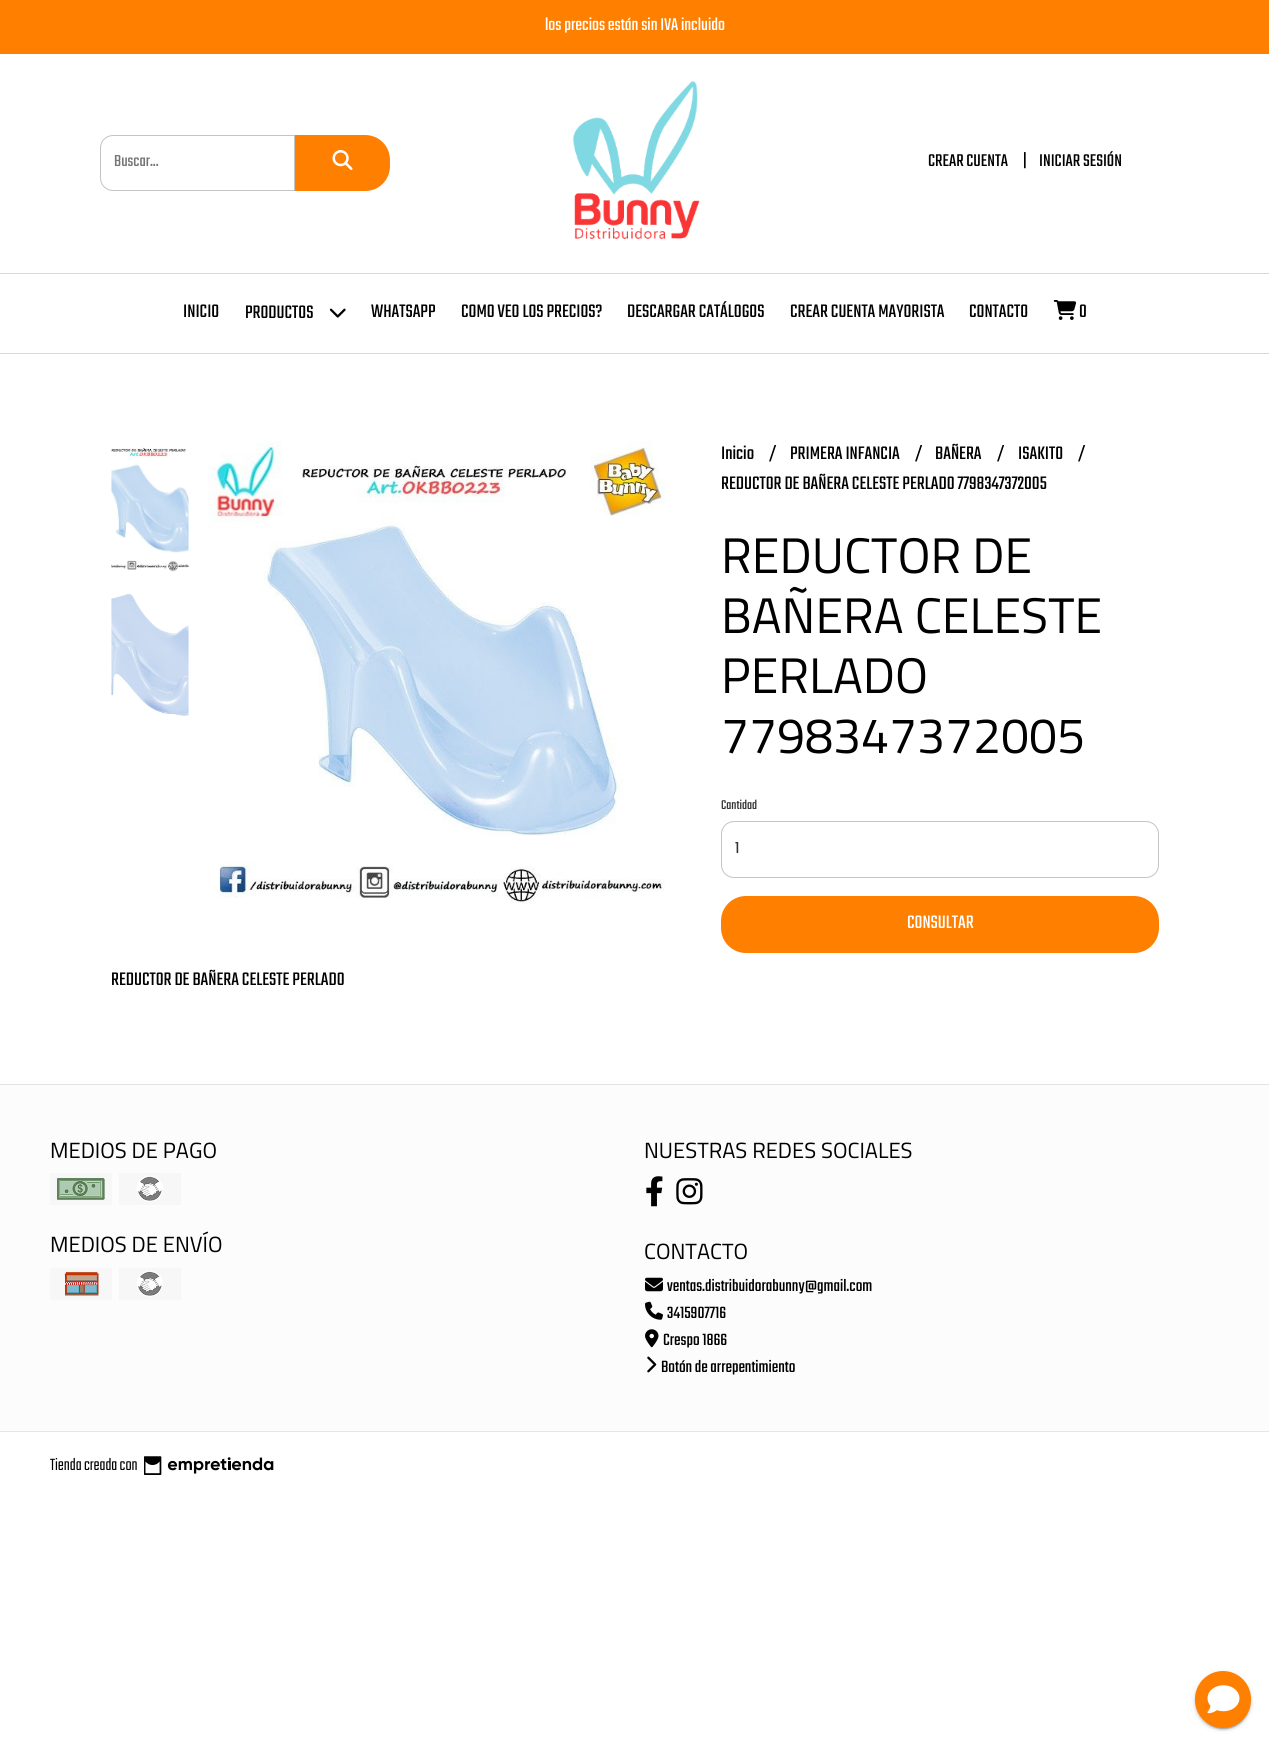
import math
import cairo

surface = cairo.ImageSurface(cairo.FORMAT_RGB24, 1269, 1746)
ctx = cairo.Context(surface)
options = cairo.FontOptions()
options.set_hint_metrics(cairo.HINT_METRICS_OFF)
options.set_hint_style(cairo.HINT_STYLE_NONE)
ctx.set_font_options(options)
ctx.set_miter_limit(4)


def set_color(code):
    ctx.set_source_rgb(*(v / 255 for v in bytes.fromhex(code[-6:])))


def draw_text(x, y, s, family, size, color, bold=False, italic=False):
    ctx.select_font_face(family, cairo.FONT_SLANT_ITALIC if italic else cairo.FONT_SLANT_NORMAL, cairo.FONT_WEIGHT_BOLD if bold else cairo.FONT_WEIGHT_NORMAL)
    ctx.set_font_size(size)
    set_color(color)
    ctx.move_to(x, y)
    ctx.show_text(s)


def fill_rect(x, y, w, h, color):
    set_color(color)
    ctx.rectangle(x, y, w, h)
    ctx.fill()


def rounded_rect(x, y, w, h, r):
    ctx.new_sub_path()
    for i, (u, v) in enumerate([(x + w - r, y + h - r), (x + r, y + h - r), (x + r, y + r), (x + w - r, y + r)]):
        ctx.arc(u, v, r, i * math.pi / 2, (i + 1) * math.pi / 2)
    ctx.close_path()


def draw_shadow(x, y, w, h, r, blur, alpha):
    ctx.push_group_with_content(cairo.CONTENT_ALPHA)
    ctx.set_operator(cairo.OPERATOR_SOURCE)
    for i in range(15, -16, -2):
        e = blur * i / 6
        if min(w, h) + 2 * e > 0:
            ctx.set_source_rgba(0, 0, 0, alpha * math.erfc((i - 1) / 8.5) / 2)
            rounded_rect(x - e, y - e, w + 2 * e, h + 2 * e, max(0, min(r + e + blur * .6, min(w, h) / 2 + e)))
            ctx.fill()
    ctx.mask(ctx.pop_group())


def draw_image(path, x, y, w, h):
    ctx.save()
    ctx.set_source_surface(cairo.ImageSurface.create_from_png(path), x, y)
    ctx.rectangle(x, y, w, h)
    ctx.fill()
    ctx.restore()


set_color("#ffffff")
ctx.paint()
fill_rect(0, 0, 1269, 54, "#ff7f00")
draw_text(545, 30, "los precios están sin IVA incluido", "Teko", 18.75, "#ffffff")
ctx.new_path()
ctx.move_to(113, 135.5)
ctx.line_to(294.5, 135.5)
ctx.line_to(294.5, 190.5)
ctx.line_to(113, 190.5)
ctx.curve_to(106, 190.5, 100.5, 185, 100.5, 178)
ctx.line_to(100.5, 148)
ctx.curve_to(100.5, 141, 106, 135.5, 113, 135.5)
ctx.close_path()
set_color("#c4c4c4")
ctx.set_line_width(1)
ctx.stroke()
draw_text(114, 166, "Buscar...", "Teko", 17.5, "#757575")
set_color("#ff7f00")
ctx.new_path()
ctx.move_to(295, 135)
ctx.line_to(365, 135)
ctx.curve_to(379, 135, 390, 146, 390, 160)
ctx.line_to(390, 166)
ctx.curve_to(390, 180, 379, 191, 365, 191)
ctx.line_to(295, 191)
ctx.close_path()
ctx.fill()
draw_image("assets/img1.png", 332, 150, 21, 20)
draw_image("assets/img2.png", 572, 81, 128, 158)
draw_text(928, 166, "CREAR CUENTA", "Teko", 18.75, "#000000")
draw_text(1023, 166, "|", "Teko", 18.75, "#000000")
draw_text(1039, 166, "INICIAR SESIÓN", "Teko", 18.75, "#000000")
fill_rect(0, 273, 1269, 1, "#d9d9d9")
fill_rect(0, 353, 1269, 1, "#d9d9d9")
draw_text(183, 317, "INICIO", "Teko", 20, "#000000")
draw_text(245, 318, "PRODUCTOS", "Teko", 20, "#000000")
draw_image("assets/img3.png", 329, 308, 17, 10)
draw_text(371, 317, "WHATSAPP", "Teko", 20, "#000000")
draw_text(461, 317, "COMO VEO LOS PRECIOS?", "Teko", 20, "#000000")
draw_text(627, 317, "DESCARGAR CATÁLOGOS", "Teko", 20, "#000000")
draw_text(790, 317, "CREAR CUENTA MAYORISTA", "Teko", 20, "#000000")
draw_text(969, 317, "CONTACTO", "Teko", 20, "#000000")
draw_image("assets/img4.png", 1053, 300, 23, 20)
draw_text(1079, 317, "0", "Teko", 20, "#000000")
draw_text(721, 459, "Inicio", "Teko", 20, "#000000")
draw_text(769, 459, "/", "Teko", 20, "#000000")
draw_text(790, 459, "PRIMERA INFANCIA", "Teko", 20, "#000000")
draw_text(915, 459, "/", "Teko", 20, "#000000")
draw_text(935, 459, "BAÑERA", "Teko", 20, "#000000")
draw_text(997, 459, "/", "Teko", 20, "#000000")
draw_text(1018, 459, "ISAKITO", "Teko", 20, "#000000")
draw_text(1078, 459, "/", "Teko", 20, "#000000")
draw_text(721, 489, "REDUCTOR DE BAÑERA CELESTE PERLADO 7798347372005", "Teko", 20, "#000000")
draw_text(721, 573, "REDUCTOR DE", "Titillium Web", 50, "#000000")
draw_text(721, 633, "BAÑERA CELESTE", "Titillium Web", 50, "#000000")
draw_text(721, 693, "PERLADO", "Titillium Web", 50, "#000000")
draw_text(721, 753, "7798347372005", "Titillium Web", 50, "#000000")
draw_text(721, 809, "Cantidad", "Teko", 14, "#333333")
rounded_rect(721.5, 821.5, 437, 56, 12.5)
set_color("#c4c4c4")
ctx.stroke()
draw_text(735, 853, "1", "Teko", 17.5, "#333333")
set_color("#ff7f00")
rounded_rect(721, 896, 438, 57, 25)
ctx.fill()
draw_text(907, 928, "CONSULTAR", "Teko", 20, "#ffffff")
draw_image("assets/img5.png", 111, 447, 78, 125)
draw_image("assets/img6.png", 111, 593, 78, 123)
draw_image("assets/img7.png", 207, 441, 458, 463)
draw_text(111, 985, "REDUCTOR DE BAÑERA CELESTE PERLADO", "Teko", 20, "#000000")
fill_rect(0, 1085, 1269, 346, "#fcfcfc")
fill_rect(0, 1084, 1269, 1, "#e3e3e3")
draw_text(50, 1158, "MEDIOS DE PAGO", "Titillium Web", 22, "#000000")
draw_image("assets/img8.png", 50, 1173, 62, 32)
draw_image("assets/img9.png", 119, 1173, 62, 32)
draw_text(50, 1252, "MEDIOS DE ENVÍO", "Titillium Web", 22, "#000000")
draw_image("assets/img10.png", 50, 1268, 62, 32)
draw_image("assets/img9.png", 119, 1268, 62, 32)
draw_text(644, 1158, "NUESTRAS REDES SOCIALES", "Titillium Web", 22, "#000000")
draw_image("assets/img11.png", 646, 1176, 17, 31)
draw_image("assets/img12.png", 676, 1178, 27, 27)
draw_text(644, 1259, "CONTACTO", "Titillium Web", 22, "#000000")
draw_image("assets/img13.png", 645, 1277, 18, 15)
draw_text(667, 1291, "ventas.distribuidorabunny@gmail.com", "Teko", 18, "#000000")
draw_image("assets/img14.png", 645, 1301, 18, 19)
draw_text(667, 1318, "3415907716", "Teko", 18, "#000000")
draw_image("assets/img15.png", 645, 1329, 14, 19)
draw_text(663, 1345, "Crespo 1866", "Teko", 18, "#000000")
draw_image("assets/img16.png", 647, 1356, 10, 17)
draw_text(661, 1372, "Botón de arrepentimiento", "Teko", 18, "#000000")
fill_rect(0, 1431, 1269, 1, "#e6e6e6")
draw_text(50, 1470, "Tienda creada con", "Teko Light", 18, "#000000")
draw_image("assets/img17.png", 144, 1456, 130, 19)
set_color("#000000")
draw_shadow(1198, 1678, 51, 51, 25.5, 0.5, 0.2)
draw_shadow(1195, 1673, 56, 56, 28, 3, 0.12)
draw_shadow(1195, 1674, 56, 56, 28, 1, 0.14)
set_color("#ff7f00")
rounded_rect(1195, 1671, 56, 57, 28)
ctx.fill()
draw_image("assets/img18.png", 1207, 1685, 33, 29)
surface.write_to_png("output.png")
